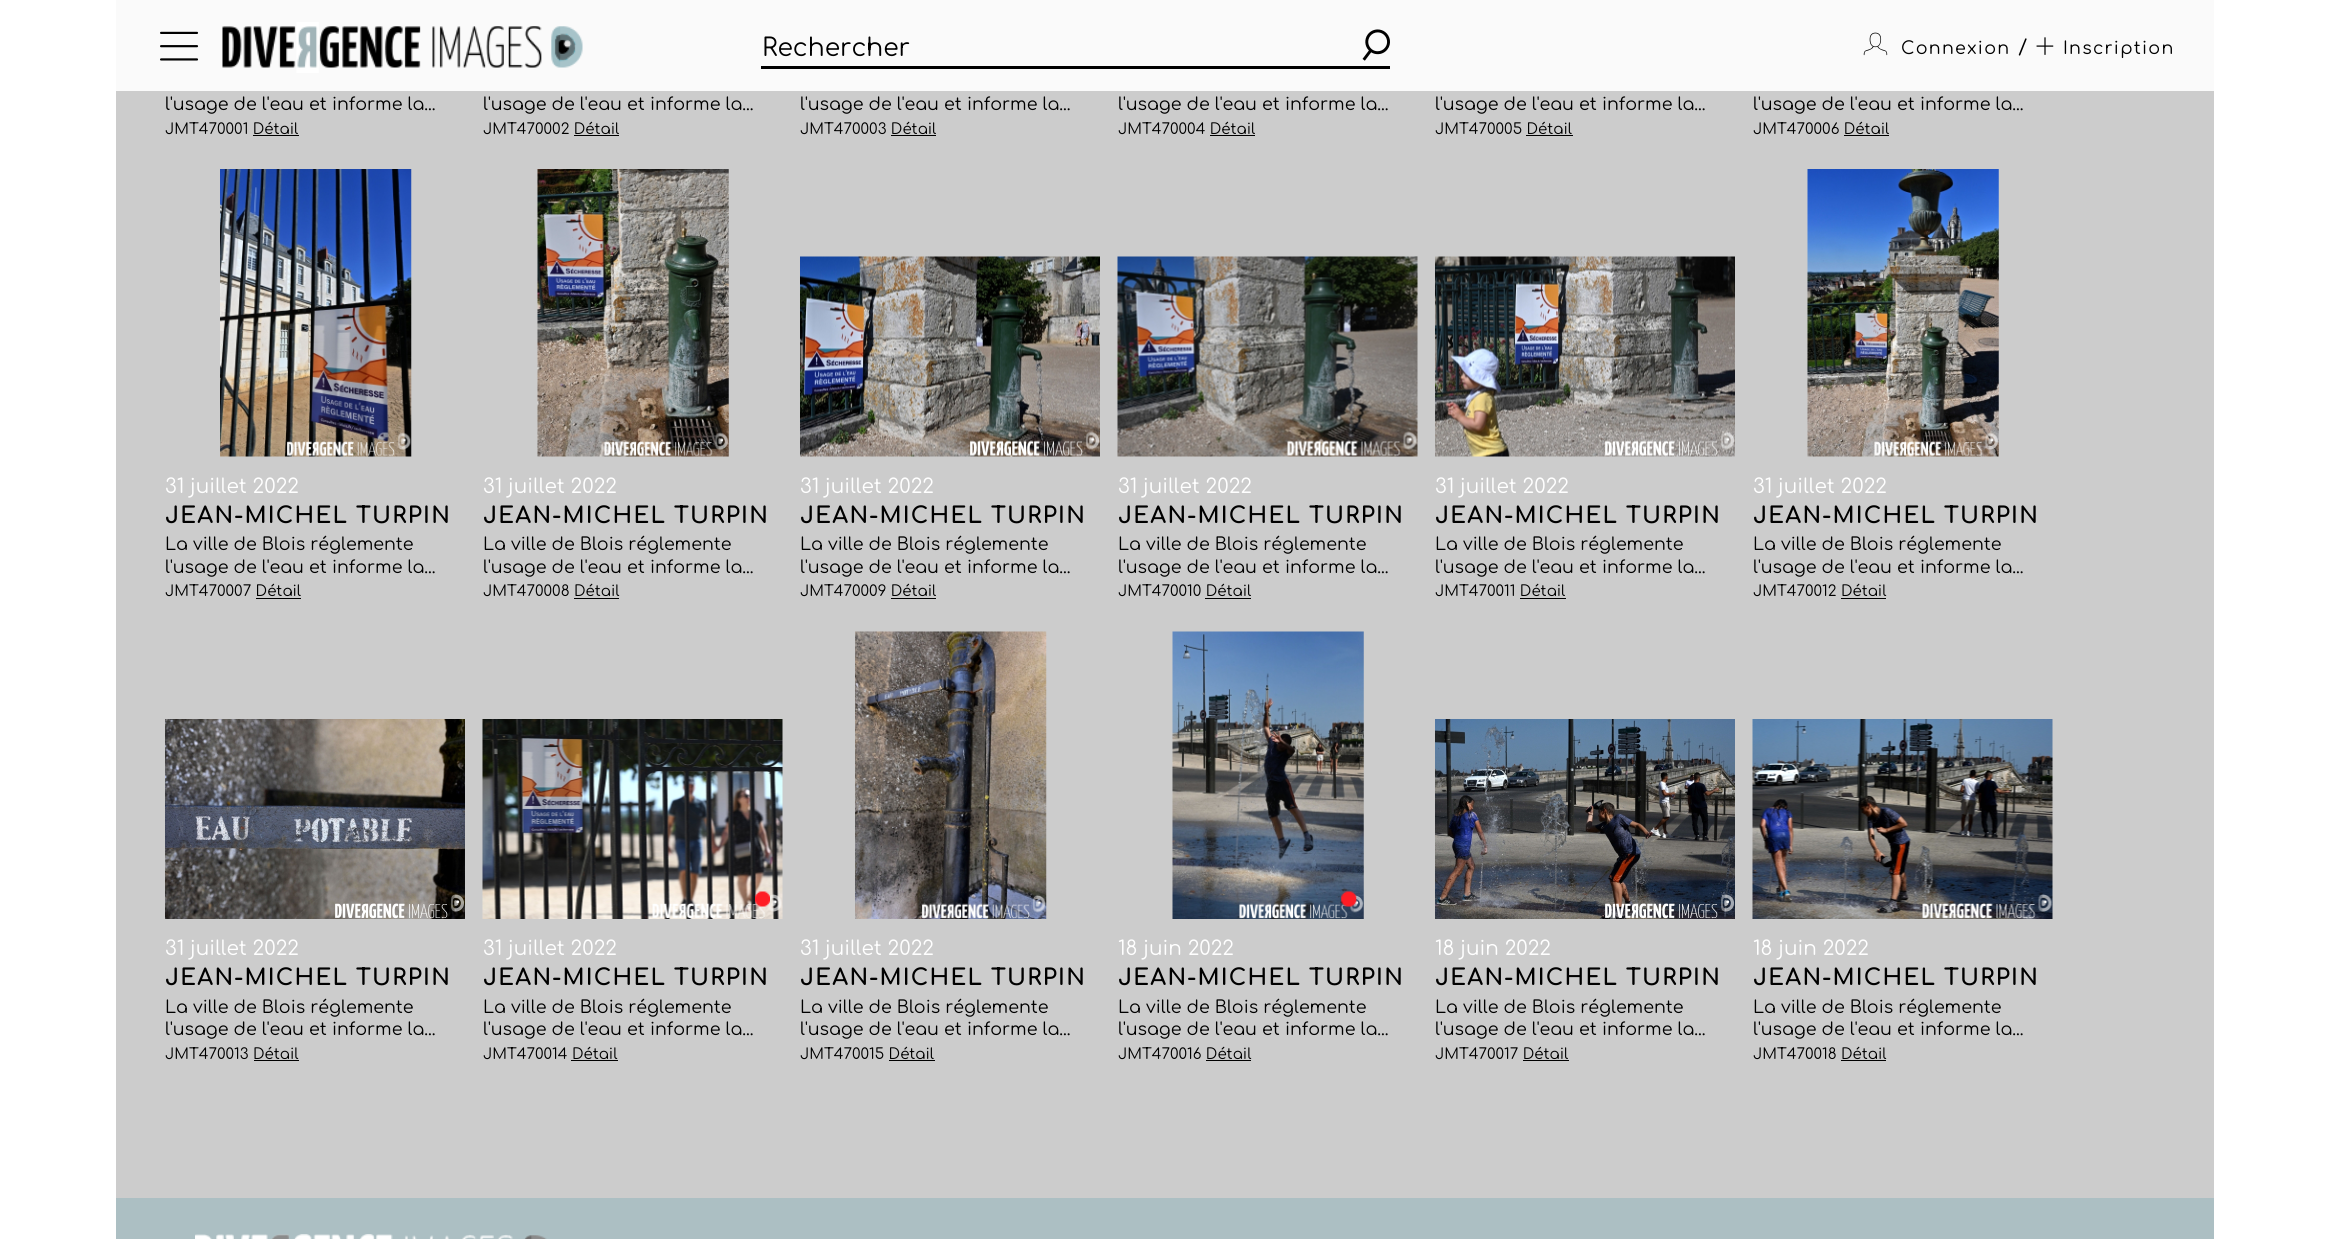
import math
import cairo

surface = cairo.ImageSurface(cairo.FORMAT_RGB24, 2329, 1239)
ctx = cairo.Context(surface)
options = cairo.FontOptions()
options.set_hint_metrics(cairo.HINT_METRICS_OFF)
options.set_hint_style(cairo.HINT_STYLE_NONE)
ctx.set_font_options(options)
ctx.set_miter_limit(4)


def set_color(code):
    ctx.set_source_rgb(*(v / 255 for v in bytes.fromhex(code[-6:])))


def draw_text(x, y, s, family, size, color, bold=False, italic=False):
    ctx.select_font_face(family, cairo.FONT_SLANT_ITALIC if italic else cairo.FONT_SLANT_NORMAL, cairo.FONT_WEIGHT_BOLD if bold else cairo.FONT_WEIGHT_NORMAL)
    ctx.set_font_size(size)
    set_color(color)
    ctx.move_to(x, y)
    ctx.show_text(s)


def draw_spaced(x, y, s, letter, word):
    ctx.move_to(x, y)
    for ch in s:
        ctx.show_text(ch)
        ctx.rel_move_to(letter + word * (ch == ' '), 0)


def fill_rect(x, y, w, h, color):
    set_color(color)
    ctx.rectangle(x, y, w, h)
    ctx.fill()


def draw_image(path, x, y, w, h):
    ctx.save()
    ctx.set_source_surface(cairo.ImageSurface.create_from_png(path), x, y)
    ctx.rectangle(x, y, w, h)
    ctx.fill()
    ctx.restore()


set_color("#ffffff")
ctx.paint()
fill_rect(116, 0, 2098, 1198, "#cccccc")
ctx.set_source_rgba(1, 1, 1, 0.9)
ctx.rectangle(116, 0, 2098, 91)
ctx.fill()
draw_image("assets/img1.png", 160, 31, 39, 30)
draw_image("assets/img2.png", 222, 22, 361, 51)
fill_rect(761, 66, 629, 3, "#000000")
draw_text(762, 56, "Rechercher", "Comfortaa", 25, "#000000")
draw_image("assets/img3.png", 1362, 29, 28, 32)
draw_image("assets/img4.png", 1863, 32, 25, 24)
ctx.set_font_size(17.5)
draw_spaced(1901, 54, "Connexion", 1.25, 0)
ctx.set_font_size(20)
draw_spaced(2018, 54, "/", 1.25, 0)
draw_image("assets/img5.png", 2036, 37, 18, 18)
ctx.set_font_size(17.5)
draw_spaced(2063, 54, "Inscription", 1.25, 0)
draw_text(165, 110, "l'usage de l'eau et informe la...", "Comfortaa", 17.5, "#000000")
draw_text(165, 134, "JMT470001 Détail", "Comfortaa", 15, "#000000")
fill_rect(253, 135, 46, 1, "#000000")
draw_text(483, 110, "l'usage de l'eau et informe la...", "Comfortaa", 17.5, "#000000")
draw_text(483, 134, "JMT470002 Détail", "Comfortaa", 15, "#000000")
fill_rect(574, 135, 45, 1, "#000000")
draw_text(800, 110, "l'usage de l'eau et informe la...", "Comfortaa", 17.5, "#000000")
draw_text(800, 134, "JMT470003 Détail", "Comfortaa", 15, "#000000")
fill_rect(891, 135, 45, 1, "#000000")
draw_text(1118, 110, "l'usage de l'eau et informe la...", "Comfortaa", 17.5, "#000000")
draw_text(1118, 134, "JMT470004 Détail", "Comfortaa", 15, "#000000")
fill_rect(1210, 135, 45, 1, "#000000")
draw_text(1435, 110, "l'usage de l'eau et informe la...", "Comfortaa", 17.5, "#000000")
draw_text(1435, 134, "JMT470005 Détail", "Comfortaa", 15, "#000000")
fill_rect(1526, 135, 47, 1, "#000000")
draw_text(1753, 110, "l'usage de l'eau et informe la...", "Comfortaa", 17.5, "#000000")
draw_text(1753, 134, "JMT470006 Détail", "Comfortaa", 15, "#000000")
fill_rect(1844, 135, 45, 1, "#000000")
draw_image("assets/img6.png", 220, 169, 192, 288)
draw_text(165, 493, "31 juillet 2022", "Comfortaa", 20, "#ffffff")
ctx.select_font_face("Comfortaa", cairo.FONT_SLANT_NORMAL, cairo.FONT_WEIGHT_BOLD)
ctx.set_font_size(22.5)
set_color("#000000")
draw_spaced(165, 523, "JEAN-MICHEL TURPIN", 1.25, 0)
draw_text(165, 550, "La ville de Blois réglemente", "Comfortaa", 17.5, "#000000")
draw_text(165, 573, "l'usage de l'eau et informe la...", "Comfortaa", 17.5, "#000000")
draw_text(165, 596, "JMT470007 Détail", "Comfortaa", 15, "#000000")
fill_rect(256, 598, 45, 1, "#000000")
draw_image("assets/img7.png", 537, 169, 192, 288)
draw_text(483, 493, "31 juillet 2022", "Comfortaa", 20, "#ffffff")
ctx.select_font_face("Comfortaa", cairo.FONT_SLANT_NORMAL, cairo.FONT_WEIGHT_BOLD)
ctx.set_font_size(22.5)
set_color("#000000")
draw_spaced(483, 523, "JEAN-MICHEL TURPIN", 1.25, 0)
draw_text(483, 550, "La ville de Blois réglemente", "Comfortaa", 17.5, "#000000")
draw_text(483, 573, "l'usage de l'eau et informe la...", "Comfortaa", 17.5, "#000000")
draw_text(483, 596, "JMT470008 Détail", "Comfortaa", 15, "#000000")
fill_rect(574, 598, 45, 1, "#000000")
draw_image("assets/img8.png", 800, 256, 300, 201)
draw_text(800, 493, "31 juillet 2022", "Comfortaa", 20, "#ffffff")
ctx.select_font_face("Comfortaa", cairo.FONT_SLANT_NORMAL, cairo.FONT_WEIGHT_BOLD)
ctx.set_font_size(22.5)
set_color("#000000")
draw_spaced(800, 523, "JEAN-MICHEL TURPIN", 1.25, 0)
draw_text(800, 550, "La ville de Blois réglemente", "Comfortaa", 17.5, "#000000")
draw_text(800, 573, "l'usage de l'eau et informe la...", "Comfortaa", 17.5, "#000000")
draw_text(800, 596, "JMT470009 Détail", "Comfortaa", 15, "#000000")
fill_rect(891, 598, 45, 1, "#000000")
draw_image("assets/img9.png", 1117, 256, 301, 201)
draw_text(1118, 493, "31 juillet 2022", "Comfortaa", 20, "#ffffff")
ctx.select_font_face("Comfortaa", cairo.FONT_SLANT_NORMAL, cairo.FONT_WEIGHT_BOLD)
ctx.set_font_size(22.5)
set_color("#000000")
draw_spaced(1118, 523, "JEAN-MICHEL TURPIN", 1.25, 0)
draw_text(1118, 550, "La ville de Blois réglemente", "Comfortaa", 17.5, "#000000")
draw_text(1118, 573, "l'usage de l'eau et informe la...", "Comfortaa", 17.5, "#000000")
draw_text(1118, 596, "JMT470010 Détail", "Comfortaa", 15, "#000000")
fill_rect(1205, 598, 46, 1, "#000000")
draw_image("assets/img10.png", 1435, 256, 300, 201)
draw_text(1435, 493, "31 juillet 2022", "Comfortaa", 20, "#ffffff")
ctx.select_font_face("Comfortaa", cairo.FONT_SLANT_NORMAL, cairo.FONT_WEIGHT_BOLD)
ctx.set_font_size(22.5)
set_color("#000000")
draw_spaced(1435, 523, "JEAN-MICHEL TURPIN", 1.25, 0)
draw_text(1435, 550, "La ville de Blois réglemente", "Comfortaa", 17.5, "#000000")
draw_text(1435, 573, "l'usage de l'eau et informe la...", "Comfortaa", 17.5, "#000000")
draw_text(1435, 596, "JMT470011 Détail", "Comfortaa", 15, "#000000")
fill_rect(1520, 598, 46, 1, "#000000")
draw_image("assets/img11.png", 1807, 169, 192, 288)
draw_text(1753, 493, "31 juillet 2022", "Comfortaa", 20, "#ffffff")
ctx.select_font_face("Comfortaa", cairo.FONT_SLANT_NORMAL, cairo.FONT_WEIGHT_BOLD)
ctx.set_font_size(22.5)
set_color("#000000")
draw_spaced(1753, 523, "JEAN-MICHEL TURPIN", 1.25, 0)
draw_text(1753, 550, "La ville de Blois réglemente", "Comfortaa", 17.5, "#000000")
draw_text(1753, 573, "l'usage de l'eau et informe la...", "Comfortaa", 17.5, "#000000")
draw_text(1753, 596, "JMT470012 Détail", "Comfortaa", 15, "#000000")
fill_rect(1841, 598, 45, 1, "#000000")
draw_image("assets/img12.png", 165, 719, 300, 200)
draw_text(165, 955, "31 juillet 2022", "Comfortaa", 20, "#ffffff")
ctx.select_font_face("Comfortaa", cairo.FONT_SLANT_NORMAL, cairo.FONT_WEIGHT_BOLD)
ctx.set_font_size(22.5)
set_color("#000000")
draw_spaced(165, 985, "JEAN-MICHEL TURPIN", 1.25, 0)
draw_text(165, 1013, "La ville de Blois réglemente", "Comfortaa", 17.5, "#000000")
draw_text(165, 1035, "l'usage de l'eau et informe la...", "Comfortaa", 17.5, "#000000")
draw_text(165, 1059, "JMT470013 Détail", "Comfortaa", 15, "#000000")
fill_rect(254, 1060, 45, 1, "#000000")
draw_image("assets/img13.png", 482, 719, 301, 200)
draw_image("assets/img14.png", 755, 891, 15, 16)
draw_text(483, 955, "31 juillet 2022", "Comfortaa", 20, "#ffffff")
ctx.select_font_face("Comfortaa", cairo.FONT_SLANT_NORMAL, cairo.FONT_WEIGHT_BOLD)
ctx.set_font_size(22.5)
set_color("#000000")
draw_spaced(483, 985, "JEAN-MICHEL TURPIN", 1.25, 0)
draw_text(483, 1013, "La ville de Blois réglemente", "Comfortaa", 17.5, "#000000")
draw_text(483, 1035, "l'usage de l'eau et informe la...", "Comfortaa", 17.5, "#000000")
draw_text(483, 1059, "JMT470014 Détail", "Comfortaa", 15, "#000000")
fill_rect(571, 1060, 47, 1, "#000000")
draw_image("assets/img15.png", 855, 631, 192, 288)
draw_text(800, 955, "31 juillet 2022", "Comfortaa", 20, "#ffffff")
ctx.select_font_face("Comfortaa", cairo.FONT_SLANT_NORMAL, cairo.FONT_WEIGHT_BOLD)
ctx.set_font_size(22.5)
set_color("#000000")
draw_spaced(800, 985, "JEAN-MICHEL TURPIN", 1.25, 0)
draw_text(800, 1013, "La ville de Blois réglemente", "Comfortaa", 17.5, "#000000")
draw_text(800, 1035, "l'usage de l'eau et informe la...", "Comfortaa", 17.5, "#000000")
draw_text(800, 1059, "JMT470015 Détail", "Comfortaa", 15, "#000000")
fill_rect(889, 1060, 46, 1, "#000000")
draw_image("assets/img16.png", 1172, 631, 192, 288)
draw_image("assets/img17.png", 1341, 891, 16, 16)
draw_text(1118, 955, "18 juin 2022", "Comfortaa", 20, "#ffffff")
ctx.select_font_face("Comfortaa", cairo.FONT_SLANT_NORMAL, cairo.FONT_WEIGHT_BOLD)
ctx.set_font_size(22.5)
set_color("#000000")
draw_spaced(1118, 985, "JEAN-MICHEL TURPIN", 1.25, 0)
draw_text(1118, 1013, "La ville de Blois réglemente", "Comfortaa", 17.5, "#000000")
draw_text(1118, 1035, "l'usage de l'eau et informe la...", "Comfortaa", 17.5, "#000000")
draw_text(1118, 1059, "JMT470016 Détail", "Comfortaa", 15, "#000000")
fill_rect(1206, 1060, 45, 1, "#000000")
draw_image("assets/img18.png", 1435, 719, 300, 200)
draw_text(1435, 955, "18 juin 2022", "Comfortaa", 20, "#ffffff")
ctx.select_font_face("Comfortaa", cairo.FONT_SLANT_NORMAL, cairo.FONT_WEIGHT_BOLD)
ctx.set_font_size(22.5)
set_color("#000000")
draw_spaced(1435, 985, "JEAN-MICHEL TURPIN", 1.25, 0)
draw_text(1435, 1013, "La ville de Blois réglemente", "Comfortaa", 17.5, "#000000")
draw_text(1435, 1035, "l'usage de l'eau et informe la...", "Comfortaa", 17.5, "#000000")
draw_text(1435, 1059, "JMT470017 Détail", "Comfortaa", 15, "#000000")
fill_rect(1523, 1060, 46, 1, "#000000")
draw_image("assets/img19.png", 1752, 719, 301, 200)
draw_text(1753, 955, "18 juin 2022", "Comfortaa", 20, "#ffffff")
ctx.select_font_face("Comfortaa", cairo.FONT_SLANT_NORMAL, cairo.FONT_WEIGHT_BOLD)
ctx.set_font_size(22.5)
set_color("#000000")
draw_spaced(1753, 985, "JEAN-MICHEL TURPIN", 1.25, 0)
draw_text(1753, 1013, "La ville de Blois réglemente", "Comfortaa", 17.5, "#000000")
draw_text(1753, 1035, "l'usage de l'eau et informe la...", "Comfortaa", 17.5, "#000000")
draw_text(1753, 1059, "JMT470018 Détail", "Comfortaa", 15, "#000000")
fill_rect(1841, 1060, 45, 1, "#000000")
fill_rect(116, 1198, 2098, 41, "#acbfc3")
draw_image("assets/img20.png", 195, 1234, 352, 5)
surface.write_to_png("output.png")
